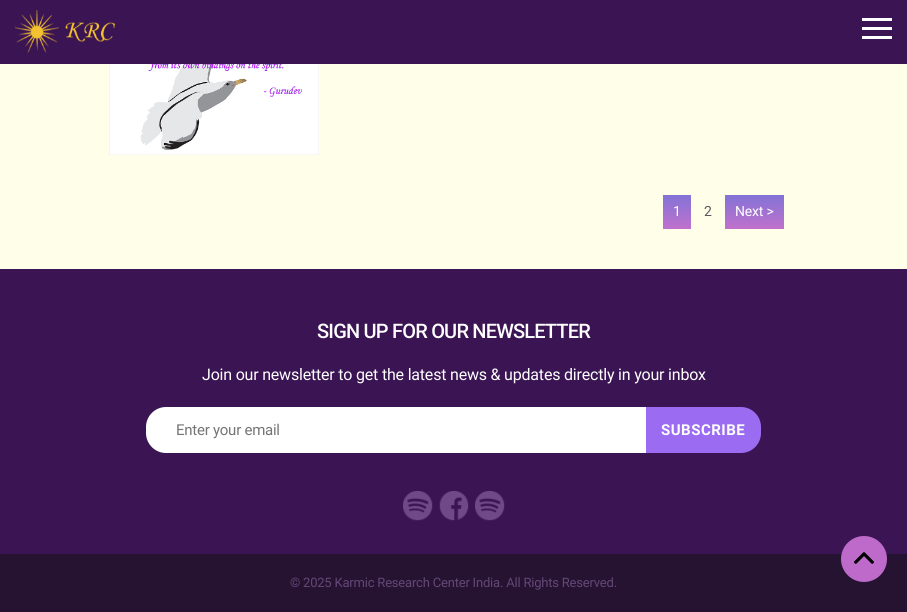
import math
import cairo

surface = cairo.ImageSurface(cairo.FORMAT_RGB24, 907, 612)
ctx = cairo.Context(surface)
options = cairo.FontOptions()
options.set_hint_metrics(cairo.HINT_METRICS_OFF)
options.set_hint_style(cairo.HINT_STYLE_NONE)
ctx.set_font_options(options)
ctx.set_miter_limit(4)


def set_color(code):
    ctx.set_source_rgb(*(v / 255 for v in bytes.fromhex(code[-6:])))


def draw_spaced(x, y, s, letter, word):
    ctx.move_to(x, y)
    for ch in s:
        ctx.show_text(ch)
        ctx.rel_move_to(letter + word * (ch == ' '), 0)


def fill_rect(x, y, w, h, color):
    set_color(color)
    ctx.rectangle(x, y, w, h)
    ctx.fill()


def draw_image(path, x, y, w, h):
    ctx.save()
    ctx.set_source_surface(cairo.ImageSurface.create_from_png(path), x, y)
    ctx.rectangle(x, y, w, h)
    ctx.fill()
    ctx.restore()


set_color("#3b1553")
ctx.paint()
draw_image("assets/img1.png", 15, 10, 100, 43)
fill_rect(862, 18, 30, 3, "#ffffff")
fill_rect(862, 27, 30, 3, "#ffffff")
fill_rect(862, 36, 30, 3, "#ffffff")
fill_rect(0, 64, 907, 205, "#fffee8")
draw_image("assets/img2.png", 109, 64, 210, 91)
gradient = cairo.LinearGradient(677, 195, 677, 229)
gradient.add_color_stop_rgba(0, 0.51, 0.451, 0.839, 1)
gradient.add_color_stop_rgba(1, 0.753, 0.443, 0.8, 1)
ctx.set_source(gradient)
ctx.rectangle(663, 195, 28, 34)
ctx.fill()
ctx.select_font_face("Roboto")
ctx.set_font_size(14)
set_color("#ffffff")
draw_spaced(673, 216, "1", -0.2, 0)
set_color("#5c595c")
draw_spaced(704, 216, "2", -0.2, 0)
gradient = cairo.LinearGradient(755, 195, 755, 229)
gradient.add_color_stop_rgba(0, 0.51, 0.451, 0.839, 1)
gradient.add_color_stop_rgba(1, 0.753, 0.443, 0.8, 1)
ctx.set_source(gradient)
ctx.rectangle(725, 195, 59, 34)
ctx.fill()
set_color("#ffffff")
draw_spaced(735, 216, "Next >", -0.2, 0)
ctx.select_font_face("Roboto Medium")
ctx.set_font_size(20)
draw_spaced(317, 338, "SIGN UP FOR OUR NEWSLETTER", -0.8, 0)
ctx.select_font_face("Roboto")
ctx.set_font_size(16)
draw_spaced(202, 380, "Join our newsletter to get the latest news & updates directly in your inbox", -0.2, 0)
ctx.new_path()
ctx.move_to(166, 407)
ctx.line_to(646, 407)
ctx.line_to(646, 453)
ctx.line_to(166, 453)
ctx.curve_to(155, 453, 146, 444, 146, 433)
ctx.line_to(146, 427)
ctx.curve_to(146, 416, 155, 407, 166, 407)
ctx.close_path()
ctx.fill()
ctx.set_font_size(15)
set_color("#757575")
draw_spaced(176, 435, "Enter your email", -0.25, 0)
set_color("#9b6cf1")
ctx.new_path()
ctx.move_to(646, 407)
ctx.line_to(741, 407)
ctx.curve_to(752, 407, 761, 416, 761, 427)
ctx.line_to(761, 433)
ctx.curve_to(761, 444, 752, 453, 741, 453)
ctx.line_to(646, 453)
ctx.close_path()
ctx.fill()
ctx.select_font_face("Roboto", cairo.FONT_SLANT_NORMAL, cairo.FONT_WEIGHT_BOLD)
set_color("#ffffff")
draw_spaced(661, 435, "SUBSCRIBE", 0.5, 0)
draw_image("assets/img3.png", 403, 491, 30, 30)
draw_image("assets/img4.png", 439, 491, 30, 30)
draw_image("assets/img3.png", 475, 491, 30, 30)
fill_rect(0, 554, 907, 58, "#261332")
ctx.select_font_face("Roboto")
ctx.set_font_size(13)
set_color("#634775")
draw_spaced(290, 587, "© 2025 Karmic Research Center India. All Rights Reserved.", -0.2, 0)
set_color("#bd6aca")
ctx.new_path()
ctx.arc(864, 559, 23, 0, 2 * math.pi)
ctx.fill()
draw_image("assets/img5.png", 854, 552, 20, 12)
surface.write_to_png("output.png")
